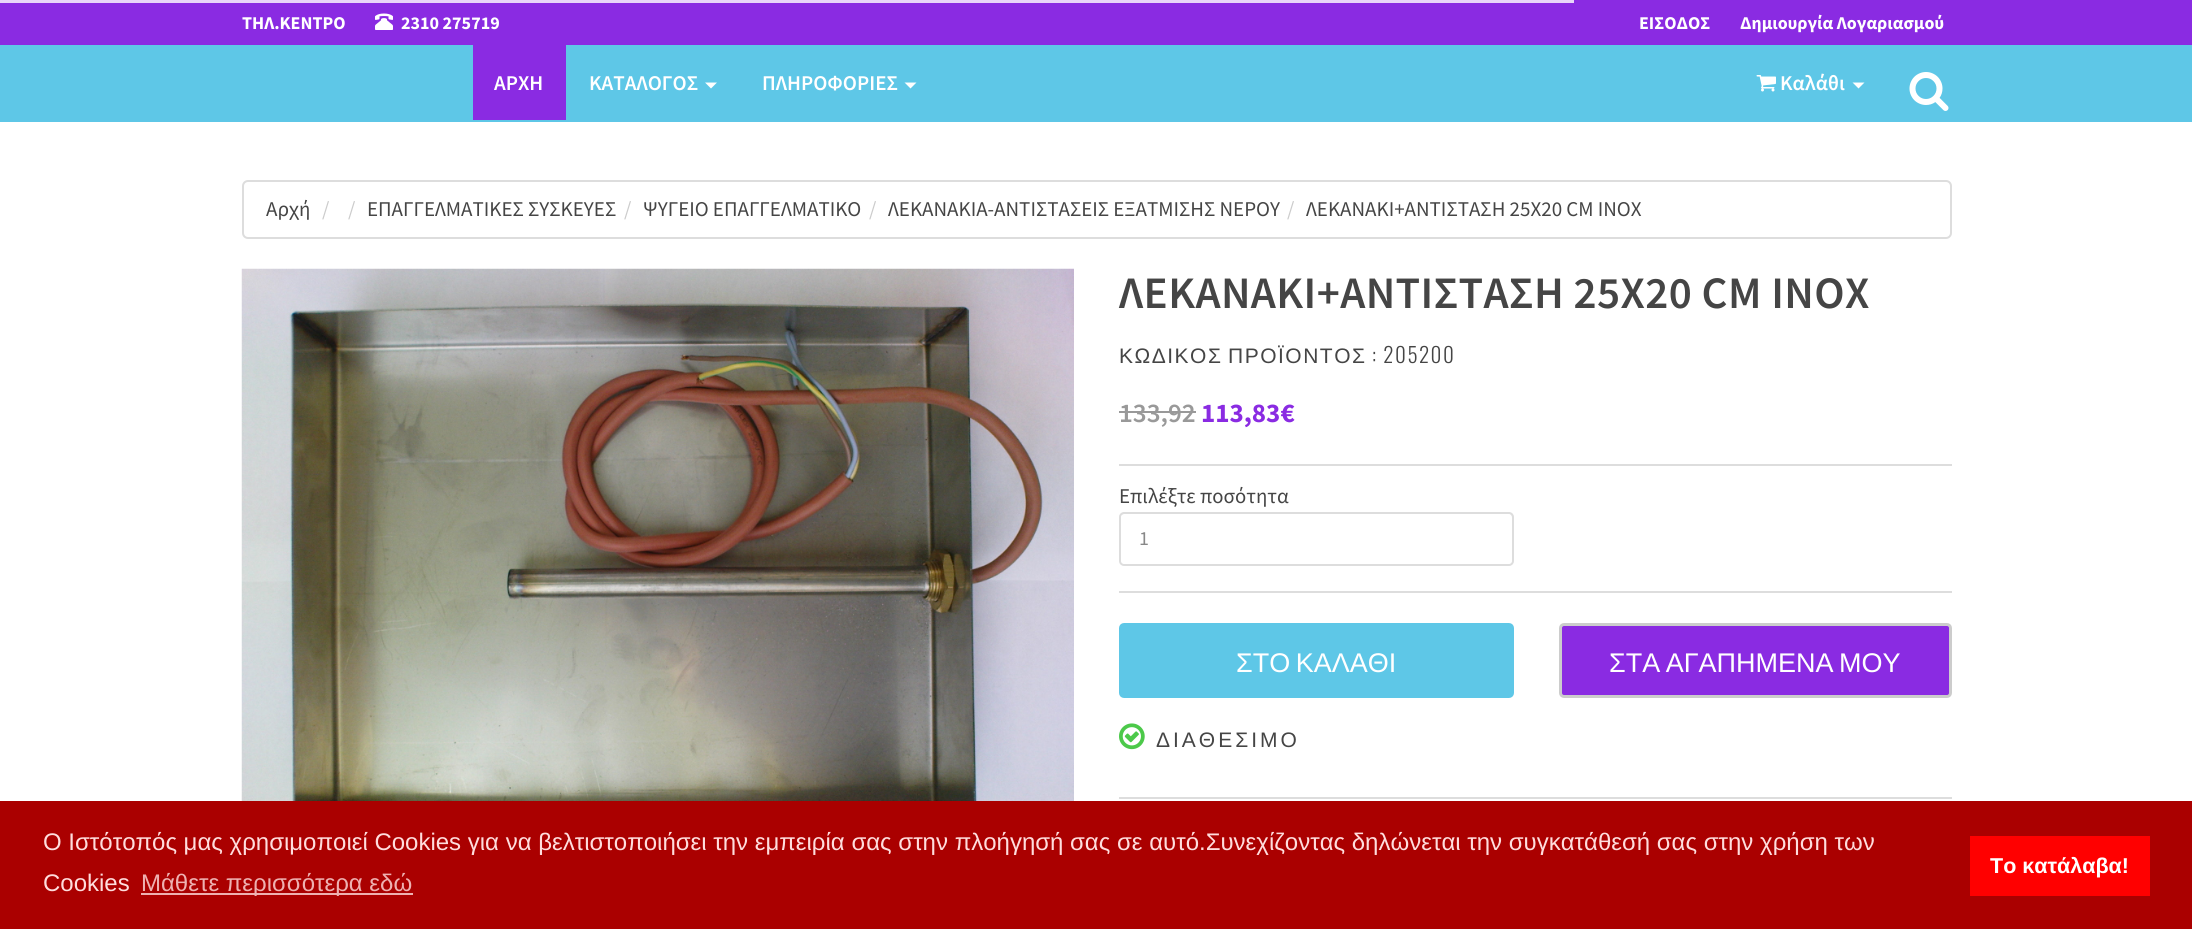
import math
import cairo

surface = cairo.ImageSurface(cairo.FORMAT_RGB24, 2192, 929)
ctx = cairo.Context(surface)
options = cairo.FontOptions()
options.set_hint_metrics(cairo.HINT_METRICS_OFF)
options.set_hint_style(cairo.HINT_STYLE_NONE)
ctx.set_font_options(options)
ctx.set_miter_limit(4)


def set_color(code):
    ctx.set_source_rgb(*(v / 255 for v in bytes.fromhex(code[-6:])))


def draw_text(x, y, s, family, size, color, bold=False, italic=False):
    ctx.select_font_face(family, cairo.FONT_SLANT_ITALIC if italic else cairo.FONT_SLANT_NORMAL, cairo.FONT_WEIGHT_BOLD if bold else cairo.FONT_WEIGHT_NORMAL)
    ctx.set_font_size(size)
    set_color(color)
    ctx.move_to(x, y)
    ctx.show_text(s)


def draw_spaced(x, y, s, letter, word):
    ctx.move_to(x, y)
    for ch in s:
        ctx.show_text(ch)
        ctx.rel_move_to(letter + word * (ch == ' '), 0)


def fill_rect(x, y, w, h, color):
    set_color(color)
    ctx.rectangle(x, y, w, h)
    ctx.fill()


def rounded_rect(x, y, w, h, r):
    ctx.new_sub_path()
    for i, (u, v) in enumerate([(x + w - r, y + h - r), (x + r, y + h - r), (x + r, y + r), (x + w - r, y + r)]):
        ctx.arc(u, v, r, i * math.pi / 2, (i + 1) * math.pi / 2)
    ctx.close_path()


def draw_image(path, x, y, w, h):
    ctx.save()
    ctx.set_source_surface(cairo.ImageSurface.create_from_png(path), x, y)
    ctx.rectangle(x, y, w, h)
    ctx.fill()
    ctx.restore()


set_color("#ffffff")
ctx.paint()
fill_rect(0, 0, 2192, 45, "#8a2be2")
fill_rect(0, 0, 1574, 3, "#e8d5f9")
fill_rect(0, 45, 2192, 77, "#5ec7e7")
draw_text(242, 29, "ΤΗΛ.ΚΕΝΤΡΟ", "Source Sans Pro", 18, "#ffffff", bold=True)
draw_image("assets/img1.png", 375, 13, 18, 17)
draw_text(401, 29, "2310 275719", "Source Sans Pro", 18, "#ffffff", bold=True)
draw_text(1639, 29, "ΕΙΣΟΔΟΣ", "Source Sans Pro", 18, "#ffffff", bold=True)
draw_text(1740, 29, "Δημιουργία Λογαριασμού", "Source Sans Pro", 18, "#ffffff", bold=True)
fill_rect(473, 45, 93, 75, "#8a2be2")
draw_text(494, 90, "ΑΡΧΗ", "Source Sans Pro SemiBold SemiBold", 21, "#ffffff")
draw_text(589, 90, "ΚΑΤΑΛΟΓΟΣ", "Source Sans Pro SemiBold SemiBold", 21, "#ffffff")
ctx.new_path()
ctx.move_to(705, 82.5)
ctx.line_to(717, 82.5)
ctx.line_to(711, 88.5)
ctx.close_path()
ctx.fill()
draw_text(762, 90, "ΠΛΗΡΟΦΟΡΙΕΣ", "Source Sans Pro SemiBold SemiBold", 21, "#ffffff")
ctx.new_path()
ctx.move_to(904.5, 82.5)
ctx.line_to(916.5, 82.5)
ctx.line_to(910.5, 88.5)
ctx.close_path()
ctx.fill()
draw_image("assets/img2.png", 1756, 75, 20, 17)
draw_text(1780, 90, "Καλάθι", "Source Sans Pro SemiBold SemiBold", 21, "#ffffff")
ctx.new_path()
ctx.move_to(1852.5, 82.5)
ctx.line_to(1864.5, 82.5)
ctx.line_to(1858.5, 88.5)
ctx.close_path()
ctx.fill()
draw_image("assets/img3.png", 1909, 72, 40, 39)
rounded_rect(243, 181, 1708, 57, 5)
set_color("#dddddd")
ctx.stroke()
draw_text(266, 216, "Αρχή", "Source Sans Pro", 21, "#454545")
draw_text(322, 216, "/", "Source Sans Pro", 21, "#cccccc")
draw_text(348, 216, "/", "Source Sans Pro", 21, "#cccccc")
draw_text(367, 216, "ΕΠΑΓΓΕΛΜΑΤΙΚΕΣ ΣΥΣΚΕΥΕΣ", "Source Sans Pro", 21, "#454545")
draw_text(624, 216, "/", "Source Sans Pro", 21, "#cccccc")
draw_text(643, 216, "ΨΥΓΕΙΟ ΕΠΑΓΓΕΛΜΑΤΙΚΟ", "Source Sans Pro", 21, "#454545")
draw_text(869, 216, "/", "Source Sans Pro", 21, "#cccccc")
draw_text(888, 216, "ΛΕΚΑΝΑΚΙΑ-ΑΝΤΙΣΤΑΣΕΙΣ ΕΞΑΤΜΙΣΗΣ ΝΕΡΟΥ", "Source Sans Pro", 21, "#454545")
draw_text(1287, 216, "/", "Source Sans Pro", 21, "#cccccc")
draw_text(1306, 216, "ΛΕΚΑΝΑΚΙ+ΑΝΤΙΣΤΑΣΗ 25Χ20 CM INOX", "Source Sans Pro", 21, "#454545")
draw_image("assets/img4.png", 241, 268, 833, 533)
ctx.select_font_face("Source Sans Pro SemiBold SemiBold")
ctx.set_font_size(45)
draw_spaced(1119, 308, "ΛΕΚΑΝΑΚΙ+ΑΝΤΙΣΤΑΣΗ 25Χ20 CM INOX", 0.4, 0)
ctx.select_font_face("Liberation Sans")
ctx.set_font_size(21)
draw_spaced(1119, 363, "ΚΩΔΙΚΟΣ", 1.5, 0)
draw_spaced(1228, 363, "ΠΡΟΪΟΝΤΟΣ", 1.5, 0)
ctx.select_font_face("Oswald Light")
draw_spaced(1372, 363, ": 205200", 1.5, 0)
draw_text(1119, 422, "133,92", "Source Sans Pro SemiBold SemiBold", 27, "#999999")
fill_rect(1119, 411, 77, 2, "#999999")
draw_text(1201, 422, "113,83€", "Source Sans Pro", 27, "#8a2be2", bold=True)
fill_rect(1119, 464, 833, 2, "#dddddd")
fill_rect(1119, 591, 833, 2, "#dddddd")
draw_text(1119, 503, "Επιλέξτε ποσότητα", "Source Sans Pro", 21, "#454545")
set_color("#ececec")
ctx.new_path()
ctx.move_to(1124, 514)
ctx.line_to(1509, 514)
ctx.curve_to(1511, 514, 1512, 516, 1512, 518)
ctx.line_to(1512, 516)
ctx.curve_to(1512, 514, 1511, 513, 1509, 513)
ctx.line_to(1124, 513)
ctx.curve_to(1123, 513, 1121, 514, 1121, 515)
ctx.close_path()
ctx.fill()
rounded_rect(1120, 513, 393, 52, 4)
set_color("#dddddd")
ctx.stroke()
draw_text(1139, 545, "1", "Source Sans Pro", 20, "#888888")
fill_rect(1119, 797, 833, 2, "#dddddd")
set_color("#5ec7e7")
rounded_rect(1120.5, 624.5, 392, 72, 3.5)
ctx.fill_preserve()
ctx.set_line_width(3)
ctx.stroke()
ctx.select_font_face("Liberation Sans")
ctx.set_font_size(27)
set_color("#ffffff")
draw_spaced(1236, 672, "ΣΤΟ ΚΑΛΑΘΙ", 0, -2)
set_color("#8a2be2")
rounded_rect(1560.5, 624.5, 390, 72, 3.5)
ctx.fill_preserve()
set_color("#cccccc")
ctx.stroke()
set_color("#ffffff")
draw_spaced(1609, 672, "ΣΤΑ ΑΓΑΠΗΜΕΝΑ ΜΟΥ", 0, -2)
draw_image("assets/img5.png", 1119, 723, 26, 27)
ctx.set_font_size(21)
set_color("#454545")
draw_spaced(1156, 747, "ΔΙΑΘΕΣΙΜΟ", 3, 0)
fill_rect(0, 801, 2192, 128, "#aa0000")
draw_text(43, 850, "Ο Ιστότοπός μας χρησιμοποιεί Cookies για να βελτιστοποιήσει την εμπειρία σας στην πλοήγησή σας σε αυτό.Συνεχίζοντας δηλώνεται την συγκατάθεσή σας στην χρήση των", "Liberation Sans", 24, "#ffdddd")
draw_text(43, 891, "Cookies", "Liberation Sans", 24, "#ffdddd")
fill_rect(141, 893, 272, 2, "#eeb1b1")
draw_text(141, 891, "Μάθετε περισσότερα εδώ", "Liberation Sans", 24, "#eeb1b1")
fill_rect(1970, 836, 180, 60, "#ff0000")
draw_text(1990, 873, "Το κατάλαβα!", "Liberation Sans", 21.5, "#ffffff", bold=True)
surface.write_to_png("output.png")
